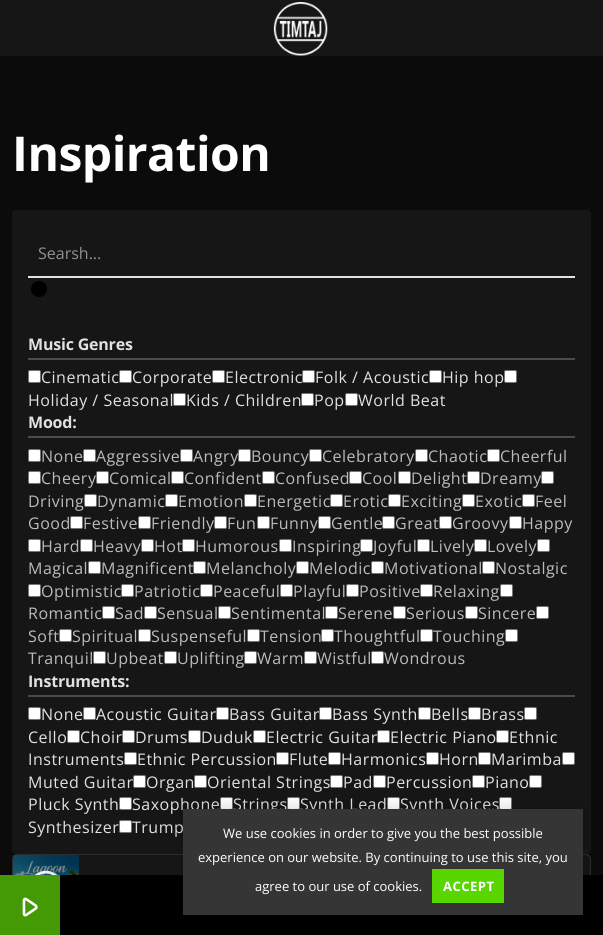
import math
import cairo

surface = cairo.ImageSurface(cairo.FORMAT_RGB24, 603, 935)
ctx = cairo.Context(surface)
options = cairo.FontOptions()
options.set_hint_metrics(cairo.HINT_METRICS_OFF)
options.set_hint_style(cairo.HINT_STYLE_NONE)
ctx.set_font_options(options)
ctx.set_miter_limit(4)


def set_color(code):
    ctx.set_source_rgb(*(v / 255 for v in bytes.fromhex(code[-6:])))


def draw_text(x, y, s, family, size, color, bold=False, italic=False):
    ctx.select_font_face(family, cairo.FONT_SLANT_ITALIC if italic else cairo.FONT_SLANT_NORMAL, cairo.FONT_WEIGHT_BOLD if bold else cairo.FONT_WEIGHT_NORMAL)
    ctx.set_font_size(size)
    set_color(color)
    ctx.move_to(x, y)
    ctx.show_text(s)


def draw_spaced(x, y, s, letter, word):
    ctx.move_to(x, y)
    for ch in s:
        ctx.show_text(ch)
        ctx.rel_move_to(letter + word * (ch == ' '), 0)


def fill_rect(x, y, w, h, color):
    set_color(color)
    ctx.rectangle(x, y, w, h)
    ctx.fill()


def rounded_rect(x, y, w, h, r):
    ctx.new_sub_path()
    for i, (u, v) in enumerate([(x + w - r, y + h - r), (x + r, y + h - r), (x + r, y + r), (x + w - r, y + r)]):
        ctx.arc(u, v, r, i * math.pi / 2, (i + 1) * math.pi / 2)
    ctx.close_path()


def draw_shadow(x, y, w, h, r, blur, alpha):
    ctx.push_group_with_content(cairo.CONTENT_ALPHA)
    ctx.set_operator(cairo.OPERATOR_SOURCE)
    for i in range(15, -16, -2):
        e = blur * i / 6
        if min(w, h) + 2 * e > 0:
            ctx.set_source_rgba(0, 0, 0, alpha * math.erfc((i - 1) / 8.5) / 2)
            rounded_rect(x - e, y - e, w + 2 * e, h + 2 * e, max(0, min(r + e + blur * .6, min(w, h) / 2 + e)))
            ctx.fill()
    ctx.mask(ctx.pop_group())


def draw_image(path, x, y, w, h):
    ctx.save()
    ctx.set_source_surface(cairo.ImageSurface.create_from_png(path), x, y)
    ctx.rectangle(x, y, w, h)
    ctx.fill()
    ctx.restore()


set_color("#0b0b0b")
ctx.paint()
fill_rect(0, 0, 603, 56, "#161616")
draw_image("assets/img1.png", 273, 2, 55, 54)
ctx.select_font_face("Open Sans", cairo.FONT_SLANT_NORMAL, cairo.FONT_WEIGHT_BOLD)
ctx.set_font_size(48)
set_color("#ffffff")
draw_spaced(12, 171, "Inspiration", -0.5, 0)
set_color("#161616")
rounded_rect(12, 210, 579, 644, 4)
ctx.fill()
fill_rect(28, 276, 547, 2, "#e1e1e1")
draw_text(38, 259, "Searsh...", "Open Sans", 16, "#909090")
set_color("#000000")
ctx.new_path()
ctx.arc(39, 289, 8, 0, 2 * math.pi)
ctx.fill()
fill_rect(28, 358, 547, 2, "#4b4b4b")
ctx.select_font_face("Open Sans", cairo.FONT_SLANT_NORMAL, cairo.FONT_WEIGHT_BOLD)
set_color("#e1e1e1")
draw_spaced(28, 350, "Music Genres", -0.2, 0)
set_color("#ffffff")
rounded_rect(28.5, 370.5, 12, 12, 1.5)
ctx.fill_preserve()
set_color("#767676")
ctx.set_line_width(1)
ctx.stroke()
ctx.select_font_face("Open Sans")
set_color("#e1e1e1")
draw_spaced(41, 383, "Cinematic", 0.5, 0)
set_color("#ffffff")
rounded_rect(119.5, 370.5, 12, 12, 1.5)
ctx.fill_preserve()
set_color("#767676")
ctx.stroke()
set_color("#e1e1e1")
draw_spaced(132, 383, "Corporate", 0.5, 0)
set_color("#ffffff")
rounded_rect(212.5, 370.5, 12, 12, 1.5)
ctx.fill_preserve()
set_color("#767676")
ctx.stroke()
set_color("#e1e1e1")
draw_spaced(225, 383, "Electronic", 0.5, 0)
set_color("#ffffff")
rounded_rect(302.5, 370.5, 12, 12, 1.5)
ctx.fill_preserve()
set_color("#767676")
ctx.stroke()
set_color("#e1e1e1")
draw_spaced(315, 383, "Folk / Acoustic", 0.5, 0)
set_color("#ffffff")
rounded_rect(429.5, 370.5, 12, 12, 1.5)
ctx.fill_preserve()
set_color("#767676")
ctx.stroke()
set_color("#e1e1e1")
draw_spaced(442, 383, "Hip hop", 0.5, 0)
set_color("#ffffff")
rounded_rect(504.5, 370.5, 12, 12, 1.5)
ctx.fill_preserve()
set_color("#767676")
ctx.stroke()
set_color("#e1e1e1")
draw_spaced(28, 406, "Holiday / Seasonal", 0.5, 0)
set_color("#ffffff")
rounded_rect(173.5, 393.5, 12, 12, 1.5)
ctx.fill_preserve()
set_color("#767676")
ctx.stroke()
set_color("#e1e1e1")
draw_spaced(186, 406, "Kids / Children", 0.5, 0)
set_color("#ffffff")
rounded_rect(301.5, 393.5, 12, 12, 1.5)
ctx.fill_preserve()
set_color("#767676")
ctx.stroke()
set_color("#e1e1e1")
draw_spaced(314, 406, "Pop", 0.5, 0)
set_color("#ffffff")
rounded_rect(345.5, 393.5, 12, 12, 1.5)
ctx.fill_preserve()
set_color("#767676")
ctx.stroke()
set_color("#e1e1e1")
draw_spaced(358, 406, "World Beat", 0.5, 0)
fill_rect(28, 436, 547, 2, "#4b4b4b")
ctx.select_font_face("Open Sans", cairo.FONT_SLANT_NORMAL, cairo.FONT_WEIGHT_BOLD)
set_color("#e1e1e1")
draw_spaced(28, 428, "Mood:", -0.2, 0)
set_color("#ffffff")
rounded_rect(28.5, 449.5, 12, 12, 1.5)
ctx.fill_preserve()
set_color("#767676")
ctx.stroke()
ctx.select_font_face("Open Sans")
set_color("#bbbbbb")
draw_spaced(41, 462, "None", 0.5, 0)
set_color("#ffffff")
rounded_rect(83.5, 449.5, 12, 12, 1.5)
ctx.fill_preserve()
set_color("#767676")
ctx.stroke()
set_color("#bbbbbb")
draw_spaced(96, 462, "Aggressive", 0.5, 0)
set_color("#ffffff")
rounded_rect(180.5, 449.5, 12, 12, 1.5)
ctx.fill_preserve()
set_color("#767676")
ctx.stroke()
set_color("#bbbbbb")
draw_spaced(193, 462, "Angry", 0.5, 0)
set_color("#ffffff")
rounded_rect(238.5, 449.5, 12, 12, 1.5)
ctx.fill_preserve()
set_color("#767676")
ctx.stroke()
set_color("#bbbbbb")
draw_spaced(251, 462, "Bouncy", 0.5, 0)
set_color("#ffffff")
rounded_rect(309.5, 449.5, 12, 12, 1.5)
ctx.fill_preserve()
set_color("#767676")
ctx.stroke()
set_color("#bbbbbb")
draw_spaced(322, 462, "Celebratory", 0.5, 0)
set_color("#ffffff")
rounded_rect(415.5, 449.5, 12, 12, 1.5)
ctx.fill_preserve()
set_color("#767676")
ctx.stroke()
set_color("#bbbbbb")
draw_spaced(428, 462, "Chaotic", 0.5, 0)
set_color("#ffffff")
rounded_rect(487.5, 449.5, 12, 12, 1.5)
ctx.fill_preserve()
set_color("#767676")
ctx.stroke()
set_color("#bbbbbb")
draw_spaced(500, 462, "Cheerful", 0.5, 0)
set_color("#ffffff")
rounded_rect(28.5, 471.5, 12, 12, 1.5)
ctx.fill_preserve()
set_color("#767676")
ctx.stroke()
set_color("#bbbbbb")
draw_spaced(41, 484, "Cheery", 0.5, 0)
set_color("#ffffff")
rounded_rect(96.5, 471.5, 12, 12, 1.5)
ctx.fill_preserve()
set_color("#767676")
ctx.stroke()
set_color("#bbbbbb")
draw_spaced(109, 484, "Comical", 0.5, 0)
set_color("#ffffff")
rounded_rect(171.5, 471.5, 12, 12, 1.5)
ctx.fill_preserve()
set_color("#767676")
ctx.stroke()
set_color("#bbbbbb")
draw_spaced(184, 484, "Confident", 0.5, 0)
set_color("#ffffff")
rounded_rect(262.5, 471.5, 12, 12, 1.5)
ctx.fill_preserve()
set_color("#767676")
ctx.stroke()
set_color("#bbbbbb")
draw_spaced(275, 484, "Confused", 0.5, 0)
set_color("#ffffff")
rounded_rect(349.5, 471.5, 12, 12, 1.5)
ctx.fill_preserve()
set_color("#767676")
ctx.stroke()
set_color("#bbbbbb")
draw_spaced(362, 484, "Cool", 0.5, 0)
set_color("#ffffff")
rounded_rect(398.5, 471.5, 12, 12, 1.5)
ctx.fill_preserve()
set_color("#767676")
ctx.stroke()
set_color("#bbbbbb")
draw_spaced(411, 484, "Delight", 0.5, 0)
set_color("#ffffff")
rounded_rect(467.5, 471.5, 12, 12, 1.5)
ctx.fill_preserve()
set_color("#767676")
ctx.stroke()
set_color("#bbbbbb")
draw_spaced(480, 484, "Dreamy", 0.5, 0)
set_color("#ffffff")
rounded_rect(522.5, 494.5, 12, 12, 1.5)
ctx.fill_preserve()
set_color("#767676")
ctx.stroke()
set_color("#bbbbbb")
draw_spaced(535, 507, "Feel", 0.5, 0)
draw_spaced(28, 529, "Good", 0.5, 0)
set_color("#ffffff")
rounded_rect(541.5, 471.5, 12, 12, 1.5)
ctx.fill_preserve()
set_color("#767676")
ctx.stroke()
set_color("#bbbbbb")
draw_spaced(28, 507, "Driving", 0.5, 0)
set_color("#ffffff")
rounded_rect(84.5, 494.5, 12, 12, 1.5)
ctx.fill_preserve()
set_color("#767676")
ctx.stroke()
set_color("#bbbbbb")
draw_spaced(97, 507, "Dynamic", 0.5, 0)
set_color("#ffffff")
rounded_rect(165.5, 494.5, 12, 12, 1.5)
ctx.fill_preserve()
set_color("#767676")
ctx.stroke()
set_color("#bbbbbb")
draw_spaced(178, 507, "Emotion", 0.5, 0)
set_color("#ffffff")
rounded_rect(244.5, 494.5, 12, 12, 1.5)
ctx.fill_preserve()
set_color("#767676")
ctx.stroke()
set_color("#bbbbbb")
draw_spaced(257, 507, "Energetic", 0.5, 0)
set_color("#ffffff")
rounded_rect(330.5, 494.5, 12, 12, 1.5)
ctx.fill_preserve()
set_color("#767676")
ctx.stroke()
set_color("#bbbbbb")
draw_spaced(343, 507, "Erotic", 0.5, 0)
set_color("#ffffff")
rounded_rect(388.5, 494.5, 12, 12, 1.5)
ctx.fill_preserve()
set_color("#767676")
ctx.stroke()
set_color("#bbbbbb")
draw_spaced(401, 507, "Exciting", 0.5, 0)
set_color("#ffffff")
rounded_rect(462.5, 494.5, 12, 12, 1.5)
ctx.fill_preserve()
set_color("#767676")
ctx.stroke()
set_color("#bbbbbb")
draw_spaced(475, 507, "Exotic", 0.5, 0)
set_color("#ffffff")
rounded_rect(70.5, 516.5, 12, 12, 1.5)
ctx.fill_preserve()
set_color("#767676")
ctx.stroke()
set_color("#bbbbbb")
draw_spaced(83, 529, "Festive", 0.5, 0)
set_color("#ffffff")
rounded_rect(138.5, 516.5, 12, 12, 1.5)
ctx.fill_preserve()
set_color("#767676")
ctx.stroke()
set_color("#bbbbbb")
draw_spaced(151, 529, "Friendly", 0.5, 0)
set_color("#ffffff")
rounded_rect(214.5, 516.5, 12, 12, 1.5)
ctx.fill_preserve()
set_color("#767676")
ctx.stroke()
set_color("#bbbbbb")
draw_spaced(227, 529, "Fun", 0.5, 0)
set_color("#ffffff")
rounded_rect(257.5, 516.5, 12, 12, 1.5)
ctx.fill_preserve()
set_color("#767676")
ctx.stroke()
set_color("#bbbbbb")
draw_spaced(270, 529, "Funny", 0.5, 0)
set_color("#ffffff")
rounded_rect(318.5, 516.5, 12, 12, 1.5)
ctx.fill_preserve()
set_color("#767676")
ctx.stroke()
set_color("#bbbbbb")
draw_spaced(331, 529, "Gentle", 0.5, 0)
set_color("#ffffff")
rounded_rect(382.5, 516.5, 12, 12, 1.5)
ctx.fill_preserve()
set_color("#767676")
ctx.stroke()
set_color("#bbbbbb")
draw_spaced(395, 529, "Great", 0.5, 0)
set_color("#ffffff")
rounded_rect(439.5, 516.5, 12, 12, 1.5)
ctx.fill_preserve()
set_color("#767676")
ctx.stroke()
set_color("#bbbbbb")
draw_spaced(452, 529, "Groovy", 0.5, 0)
set_color("#ffffff")
rounded_rect(509.5, 516.5, 12, 12, 1.5)
ctx.fill_preserve()
set_color("#767676")
ctx.stroke()
set_color("#bbbbbb")
draw_spaced(522, 529, "Happy", 0.5, 0)
set_color("#ffffff")
rounded_rect(28.5, 539.5, 12, 12, 1.5)
ctx.fill_preserve()
set_color("#767676")
ctx.stroke()
set_color("#bbbbbb")
draw_spaced(41, 552, "Hard", 0.5, 0)
set_color("#ffffff")
rounded_rect(80.5, 539.5, 12, 12, 1.5)
ctx.fill_preserve()
set_color("#767676")
ctx.stroke()
set_color("#bbbbbb")
draw_spaced(93, 552, "Heavy", 0.5, 0)
set_color("#ffffff")
rounded_rect(141.5, 539.5, 12, 12, 1.5)
ctx.fill_preserve()
set_color("#767676")
ctx.stroke()
set_color("#bbbbbb")
draw_spaced(154, 552, "Hot", 0.5, 0)
set_color("#ffffff")
rounded_rect(182.5, 539.5, 12, 12, 1.5)
ctx.fill_preserve()
set_color("#767676")
ctx.stroke()
set_color("#bbbbbb")
draw_spaced(195, 552, "Humorous", 0.5, 0)
set_color("#ffffff")
rounded_rect(279.5, 539.5, 12, 12, 1.5)
ctx.fill_preserve()
set_color("#767676")
ctx.stroke()
set_color("#bbbbbb")
draw_spaced(292, 552, "Inspiring", 0.5, 0)
draw_spaced(373, 552, "Joyful", 0.5, 0)
set_color("#ffffff")
rounded_rect(360.5, 539.5, 12, 12, 1.5)
ctx.fill_preserve()
set_color("#767676")
ctx.stroke()
set_color("#ffffff")
rounded_rect(417.5, 539.5, 12, 12, 1.5)
ctx.fill_preserve()
set_color("#767676")
ctx.stroke()
set_color("#bbbbbb")
draw_spaced(430, 552, "Lively", 0.5, 0)
set_color("#ffffff")
rounded_rect(474.5, 539.5, 12, 12, 1.5)
ctx.fill_preserve()
set_color("#767676")
ctx.stroke()
set_color("#bbbbbb")
draw_spaced(487, 552, "Lovely", 0.5, 0)
set_color("#ffffff")
rounded_rect(537.5, 539.5, 12, 12, 1.5)
ctx.fill_preserve()
set_color("#767676")
ctx.stroke()
set_color("#bbbbbb")
draw_spaced(28, 574, "Magical", 0.5, 0)
set_color("#ffffff")
rounded_rect(88.5, 561.5, 12, 12, 1.5)
ctx.fill_preserve()
set_color("#767676")
ctx.stroke()
set_color("#bbbbbb")
draw_spaced(101, 574, "Magnificent", 0.5, 0)
set_color("#ffffff")
rounded_rect(193.5, 561.5, 12, 12, 1.5)
ctx.fill_preserve()
set_color("#767676")
ctx.stroke()
set_color("#bbbbbb")
draw_spaced(206, 574, "Melancholy", 0.5, 0)
set_color("#ffffff")
rounded_rect(296.5, 561.5, 12, 12, 1.5)
ctx.fill_preserve()
set_color("#767676")
ctx.stroke()
set_color("#bbbbbb")
draw_spaced(309, 574, "Melodic", 0.5, 0)
set_color("#ffffff")
rounded_rect(371.5, 561.5, 12, 12, 1.5)
ctx.fill_preserve()
set_color("#767676")
ctx.stroke()
set_color("#bbbbbb")
draw_spaced(384, 574, "Motivational", 0.5, 0)
set_color("#ffffff")
rounded_rect(482.5, 561.5, 12, 12, 1.5)
ctx.fill_preserve()
set_color("#767676")
ctx.stroke()
set_color("#bbbbbb")
draw_spaced(495, 574, "Nostalgic", 0.5, 0)
set_color("#ffffff")
rounded_rect(28.5, 584.5, 12, 12, 1.5)
ctx.fill_preserve()
set_color("#767676")
ctx.stroke()
set_color("#bbbbbb")
draw_spaced(41, 597, "Optimistic", 0.5, 0)
set_color("#ffffff")
rounded_rect(121.5, 584.5, 12, 12, 1.5)
ctx.fill_preserve()
set_color("#767676")
ctx.stroke()
set_color("#bbbbbb")
draw_spaced(134, 597, "Patriotic", 0.5, 0)
set_color("#ffffff")
rounded_rect(200.5, 584.5, 12, 12, 1.5)
ctx.fill_preserve()
set_color("#767676")
ctx.stroke()
set_color("#bbbbbb")
draw_spaced(213, 597, "Peaceful", 0.5, 0)
set_color("#ffffff")
rounded_rect(280.5, 584.5, 12, 12, 1.5)
ctx.fill_preserve()
set_color("#767676")
ctx.stroke()
set_color("#bbbbbb")
draw_spaced(293, 597, "Playful", 0.5, 0)
set_color("#ffffff")
rounded_rect(346.5, 584.5, 12, 12, 1.5)
ctx.fill_preserve()
set_color("#767676")
ctx.stroke()
set_color("#bbbbbb")
draw_spaced(359, 597, "Positive", 0.5, 0)
set_color("#ffffff")
rounded_rect(420.5, 584.5, 12, 12, 1.5)
ctx.fill_preserve()
set_color("#767676")
ctx.stroke()
set_color("#bbbbbb")
draw_spaced(433, 597, "Relaxing", 0.5, 0)
set_color("#ffffff")
rounded_rect(500.5, 584.5, 12, 12, 1.5)
ctx.fill_preserve()
set_color("#767676")
ctx.stroke()
set_color("#bbbbbb")
draw_spaced(28, 619, "Romantic", 0.5, 0)
set_color("#ffffff")
rounded_rect(102.5, 606.5, 12, 12, 1.5)
ctx.fill_preserve()
set_color("#767676")
ctx.stroke()
set_color("#bbbbbb")
draw_spaced(115, 619, "Sad", 0.5, 0)
set_color("#ffffff")
rounded_rect(144.5, 606.5, 12, 12, 1.5)
ctx.fill_preserve()
set_color("#767676")
ctx.stroke()
set_color("#bbbbbb")
draw_spaced(157, 619, "Sensual", 0.5, 0)
set_color("#ffffff")
rounded_rect(218.5, 606.5, 12, 12, 1.5)
ctx.fill_preserve()
set_color("#767676")
ctx.stroke()
set_color("#bbbbbb")
draw_spaced(231, 619, "Sentimental", 0.5, 0)
set_color("#ffffff")
rounded_rect(325.5, 606.5, 12, 12, 1.5)
ctx.fill_preserve()
set_color("#767676")
ctx.stroke()
set_color("#bbbbbb")
draw_spaced(338, 619, "Serene", 0.5, 0)
set_color("#ffffff")
rounded_rect(393.5, 606.5, 12, 12, 1.5)
ctx.fill_preserve()
set_color("#767676")
ctx.stroke()
set_color("#bbbbbb")
draw_spaced(406, 619, "Serious", 0.5, 0)
set_color("#ffffff")
rounded_rect(465.5, 606.5, 12, 12, 1.5)
ctx.fill_preserve()
set_color("#767676")
ctx.stroke()
set_color("#bbbbbb")
draw_spaced(478, 619, "Sincere", 0.5, 0)
set_color("#ffffff")
rounded_rect(536.5, 606.5, 12, 12, 1.5)
ctx.fill_preserve()
set_color("#767676")
ctx.stroke()
set_color("#bbbbbb")
draw_spaced(28, 642, "Soft", 0.5, 0)
set_color("#ffffff")
rounded_rect(59.5, 629.5, 12, 12, 1.5)
ctx.fill_preserve()
set_color("#767676")
ctx.stroke()
set_color("#bbbbbb")
draw_spaced(72, 642, "Spiritual", 0.5, 0)
set_color("#ffffff")
rounded_rect(138.5, 629.5, 12, 12, 1.5)
ctx.fill_preserve()
set_color("#767676")
ctx.stroke()
set_color("#bbbbbb")
draw_spaced(151, 642, "Suspenseful", 0.5, 0)
draw_spaced(260, 642, "Tension", 0.5, 0)
set_color("#ffffff")
rounded_rect(247.5, 629.5, 12, 12, 1.5)
ctx.fill_preserve()
set_color("#767676")
ctx.stroke()
set_color("#ffffff")
rounded_rect(321.5, 629.5, 12, 12, 1.5)
ctx.fill_preserve()
set_color("#767676")
ctx.stroke()
set_color("#bbbbbb")
draw_spaced(334, 642, "Thoughtful", 0.5, 0)
set_color("#ffffff")
rounded_rect(420.5, 629.5, 12, 12, 1.5)
ctx.fill_preserve()
set_color("#767676")
ctx.stroke()
set_color("#bbbbbb")
draw_spaced(433, 642, "Touching", 0.5, 0)
set_color("#ffffff")
rounded_rect(505.5, 629.5, 12, 12, 1.5)
ctx.fill_preserve()
set_color("#767676")
ctx.stroke()
set_color("#bbbbbb")
draw_spaced(28, 664, "Tranquil", 0.5, 0)
set_color("#ffffff")
rounded_rect(93.5, 651.5, 12, 12, 1.5)
ctx.fill_preserve()
set_color("#767676")
ctx.stroke()
set_color("#bbbbbb")
draw_spaced(106, 664, "Upbeat", 0.5, 0)
set_color("#ffffff")
rounded_rect(164.5, 651.5, 12, 12, 1.5)
ctx.fill_preserve()
set_color("#767676")
ctx.stroke()
set_color("#bbbbbb")
draw_spaced(177, 664, "Uplifting", 0.5, 0)
set_color("#ffffff")
rounded_rect(244.5, 651.5, 12, 12, 1.5)
ctx.fill_preserve()
set_color("#767676")
ctx.stroke()
set_color("#bbbbbb")
draw_spaced(257, 664, "Warm", 0.5, 0)
set_color("#ffffff")
rounded_rect(304.5, 651.5, 12, 12, 1.5)
ctx.fill_preserve()
set_color("#767676")
ctx.stroke()
set_color("#bbbbbb")
draw_spaced(317, 664, "Wistful", 0.5, 0)
set_color("#ffffff")
rounded_rect(371.5, 651.5, 12, 12, 1.5)
ctx.fill_preserve()
set_color("#767676")
ctx.stroke()
set_color("#bbbbbb")
draw_spaced(384, 664, "Wondrous", 0.5, 0)
fill_rect(28, 695, 547, 2, "#4b4b4b")
ctx.select_font_face("Open Sans", cairo.FONT_SLANT_NORMAL, cairo.FONT_WEIGHT_BOLD)
set_color("#e1e1e1")
draw_spaced(28, 687, "Instruments:", -0.2, 0)
set_color("#ffffff")
rounded_rect(28.5, 707.5, 12, 12, 1.5)
ctx.fill_preserve()
set_color("#767676")
ctx.stroke()
ctx.select_font_face("Open Sans")
set_color("#e1e1e1")
draw_spaced(41, 720, "None", 0.5, 0)
set_color("#ffffff")
rounded_rect(83.5, 707.5, 12, 12, 1.5)
ctx.fill_preserve()
set_color("#767676")
ctx.stroke()
set_color("#e1e1e1")
draw_spaced(96, 720, "Acoustic Guitar", 0.5, 0)
set_color("#ffffff")
rounded_rect(216.5, 707.5, 12, 12, 1.5)
ctx.fill_preserve()
set_color("#767676")
ctx.stroke()
set_color("#e1e1e1")
draw_spaced(229, 720, "Bass Guitar", 0.5, 0)
set_color("#ffffff")
rounded_rect(319.5, 707.5, 12, 12, 1.5)
ctx.fill_preserve()
set_color("#767676")
ctx.stroke()
set_color("#e1e1e1")
draw_spaced(332, 720, "Bass Synth", 0.5, 0)
set_color("#ffffff")
rounded_rect(418.5, 707.5, 12, 12, 1.5)
ctx.fill_preserve()
set_color("#767676")
ctx.stroke()
set_color("#e1e1e1")
draw_spaced(431, 720, "Bells", 0.5, 0)
set_color("#ffffff")
rounded_rect(468.5, 707.5, 12, 12, 1.5)
ctx.fill_preserve()
set_color("#767676")
ctx.stroke()
set_color("#e1e1e1")
draw_spaced(481, 720, "Brass", 0.5, 0)
set_color("#ffffff")
rounded_rect(524.5, 707.5, 12, 12, 1.5)
ctx.fill_preserve()
set_color("#767676")
ctx.stroke()
set_color("#e1e1e1")
draw_spaced(28, 743, "Cello", 0.5, 0)
set_color("#ffffff")
rounded_rect(496.5, 730.5, 12, 12, 1.5)
ctx.fill_preserve()
set_color("#767676")
ctx.stroke()
set_color("#e1e1e1")
draw_spaced(509, 743, "Ethnic", 0.5, 0)
draw_spaced(28, 765, "Instruments", 0.5, 0)
set_color("#ffffff")
rounded_rect(67.5, 730.5, 12, 12, 1.5)
ctx.fill_preserve()
set_color("#767676")
ctx.stroke()
set_color("#e1e1e1")
draw_spaced(80, 743, "Choir", 0.5, 0)
set_color("#ffffff")
rounded_rect(122.5, 730.5, 12, 12, 1.5)
ctx.fill_preserve()
set_color("#767676")
ctx.stroke()
set_color("#e1e1e1")
draw_spaced(135, 743, "Drums", 0.5, 0)
set_color("#ffffff")
rounded_rect(188.5, 730.5, 12, 12, 1.5)
ctx.fill_preserve()
set_color("#767676")
ctx.stroke()
set_color("#e1e1e1")
draw_spaced(201, 743, "Duduk", 0.5, 0)
set_color("#ffffff")
rounded_rect(253.5, 730.5, 12, 12, 1.5)
ctx.fill_preserve()
set_color("#767676")
ctx.stroke()
set_color("#e1e1e1")
draw_spaced(266, 743, "Electric Guitar", 0.5, 0)
set_color("#ffffff")
rounded_rect(377.5, 730.5, 12, 12, 1.5)
ctx.fill_preserve()
set_color("#767676")
ctx.stroke()
set_color("#e1e1e1")
draw_spaced(390, 743, "Electric Piano", 0.5, 0)
set_color("#ffffff")
rounded_rect(124.5, 752.5, 12, 12, 1.5)
ctx.fill_preserve()
set_color("#767676")
ctx.stroke()
set_color("#e1e1e1")
draw_spaced(137, 765, "Ethnic Percussion", 0.5, 0)
set_color("#ffffff")
rounded_rect(276.5, 752.5, 12, 12, 1.5)
ctx.fill_preserve()
set_color("#767676")
ctx.stroke()
set_color("#e1e1e1")
draw_spaced(289, 765, "Flute", 0.5, 0)
set_color("#ffffff")
rounded_rect(328.5, 752.5, 12, 12, 1.5)
ctx.fill_preserve()
set_color("#767676")
ctx.stroke()
set_color("#e1e1e1")
draw_spaced(341, 765, "Harmonics", 0.5, 0)
set_color("#ffffff")
rounded_rect(426.5, 752.5, 12, 12, 1.5)
ctx.fill_preserve()
set_color("#767676")
ctx.stroke()
set_color("#e1e1e1")
draw_spaced(439, 765, "Horn", 0.5, 0)
set_color("#ffffff")
rounded_rect(478.5, 752.5, 12, 12, 1.5)
ctx.fill_preserve()
set_color("#767676")
ctx.stroke()
set_color("#e1e1e1")
draw_spaced(491, 765, "Marimba", 0.5, 0)
set_color("#ffffff")
rounded_rect(562.5, 752.5, 12, 12, 1.5)
ctx.fill_preserve()
set_color("#767676")
ctx.stroke()
set_color("#e1e1e1")
draw_spaced(28, 788, "Muted Guitar", 0.5, 0)
set_color("#ffffff")
rounded_rect(133.5, 775.5, 12, 12, 1.5)
ctx.fill_preserve()
set_color("#767676")
ctx.stroke()
set_color("#e1e1e1")
draw_spaced(146, 788, "Organ", 0.5, 0)
set_color("#ffffff")
rounded_rect(194.5, 775.5, 12, 12, 1.5)
ctx.fill_preserve()
set_color("#767676")
ctx.stroke()
set_color("#e1e1e1")
draw_spaced(207, 788, "Oriental Strings", 0.5, 0)
set_color("#ffffff")
rounded_rect(330.5, 775.5, 12, 12, 1.5)
ctx.fill_preserve()
set_color("#767676")
ctx.stroke()
set_color("#e1e1e1")
draw_spaced(343, 788, "Pad", 0.5, 0)
set_color("#ffffff")
rounded_rect(373.5, 775.5, 12, 12, 1.5)
ctx.fill_preserve()
set_color("#767676")
ctx.stroke()
set_color("#e1e1e1")
draw_spaced(386, 788, "Percussion", 0.5, 0)
set_color("#ffffff")
rounded_rect(472.5, 775.5, 12, 12, 1.5)
ctx.fill_preserve()
set_color("#767676")
ctx.stroke()
set_color("#e1e1e1")
draw_spaced(485, 788, "Piano", 0.5, 0)
set_color("#ffffff")
rounded_rect(529.5, 775.5, 12, 12, 1.5)
ctx.fill_preserve()
set_color("#767676")
ctx.stroke()
set_color("#e1e1e1")
draw_spaced(28, 810, "Pluck Synth", 0.5, 0)
set_color("#ffffff")
rounded_rect(119.5, 797.5, 12, 12, 1.5)
ctx.fill_preserve()
set_color("#767676")
ctx.stroke()
set_color("#e1e1e1")
draw_spaced(132, 810, "Saxophone", 0.5, 0)
set_color("#ffffff")
rounded_rect(220.5, 797.5, 12, 12, 1.5)
ctx.fill_preserve()
set_color("#767676")
ctx.stroke()
set_color("#e1e1e1")
draw_spaced(233, 810, "Strings", 0.5, 0)
set_color("#ffffff")
rounded_rect(287.5, 797.5, 12, 12, 1.5)
ctx.fill_preserve()
set_color("#767676")
ctx.stroke()
set_color("#e1e1e1")
draw_spaced(300, 810, "Synth Lead", 0.5, 0)
set_color("#ffffff")
rounded_rect(387.5, 797.5, 12, 12, 1.5)
ctx.fill_preserve()
set_color("#767676")
ctx.stroke()
set_color("#e1e1e1")
draw_spaced(400, 810, "Synth Voices", 0.5, 0)
set_color("#ffffff")
rounded_rect(499.5, 797.5, 12, 12, 1.5)
ctx.fill_preserve()
set_color("#767676")
ctx.stroke()
set_color("#e1e1e1")
draw_spaced(28, 833, "Synthesizer", 0.5, 0)
draw_spaced(132, 833, "Trump", 0.5, 0)
set_color("#ffffff")
rounded_rect(119.5, 820.5, 12, 12, 1.5)
ctx.fill_preserve()
set_color("#767676")
ctx.stroke()
set_color("#161616")
rounded_rect(12, 854, 579, 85, 4)
ctx.fill()
rounded_rect(12.5, 854.5, 578, 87, 5.5)
set_color("#2d2d2d")
ctx.stroke()
draw_image("assets/img2.png", 13, 855, 66, 20)
draw_image("assets/img3.png", 34, 870, 24, 5)
fill_rect(60, 875, 543, 60, "#000000")
set_color("#000000")
draw_shadow(183, 809, 400, 106, 0, 7.5, 0.2)
fill_rect(183, 809, 400, 106, "#353535")
draw_text(223, 838, "We use cookies in order to give you the best possible", "Open Sans", 13, "#ffffff")
draw_text(198, 862, "experience on our website. By continuing to use this site, you", "Open Sans", 13, "#ffffff")
draw_text(255, 891, "agree to our use of cookies.", "Open Sans", 13, "#ffffff")
fill_rect(432, 869, 72, 34, "#59d600")
ctx.select_font_face("Open Sans", cairo.FONT_SLANT_NORMAL, cairo.FONT_WEIGHT_BOLD)
set_color("#ffffff")
draw_spaced(443, 891, "ACCEPT", 0.5, 0)
fill_rect(0, 875, 60, 60, "#439a05")
draw_image("assets/img4.png", 22, 897, 16, 20)
surface.write_to_png("output.png")
